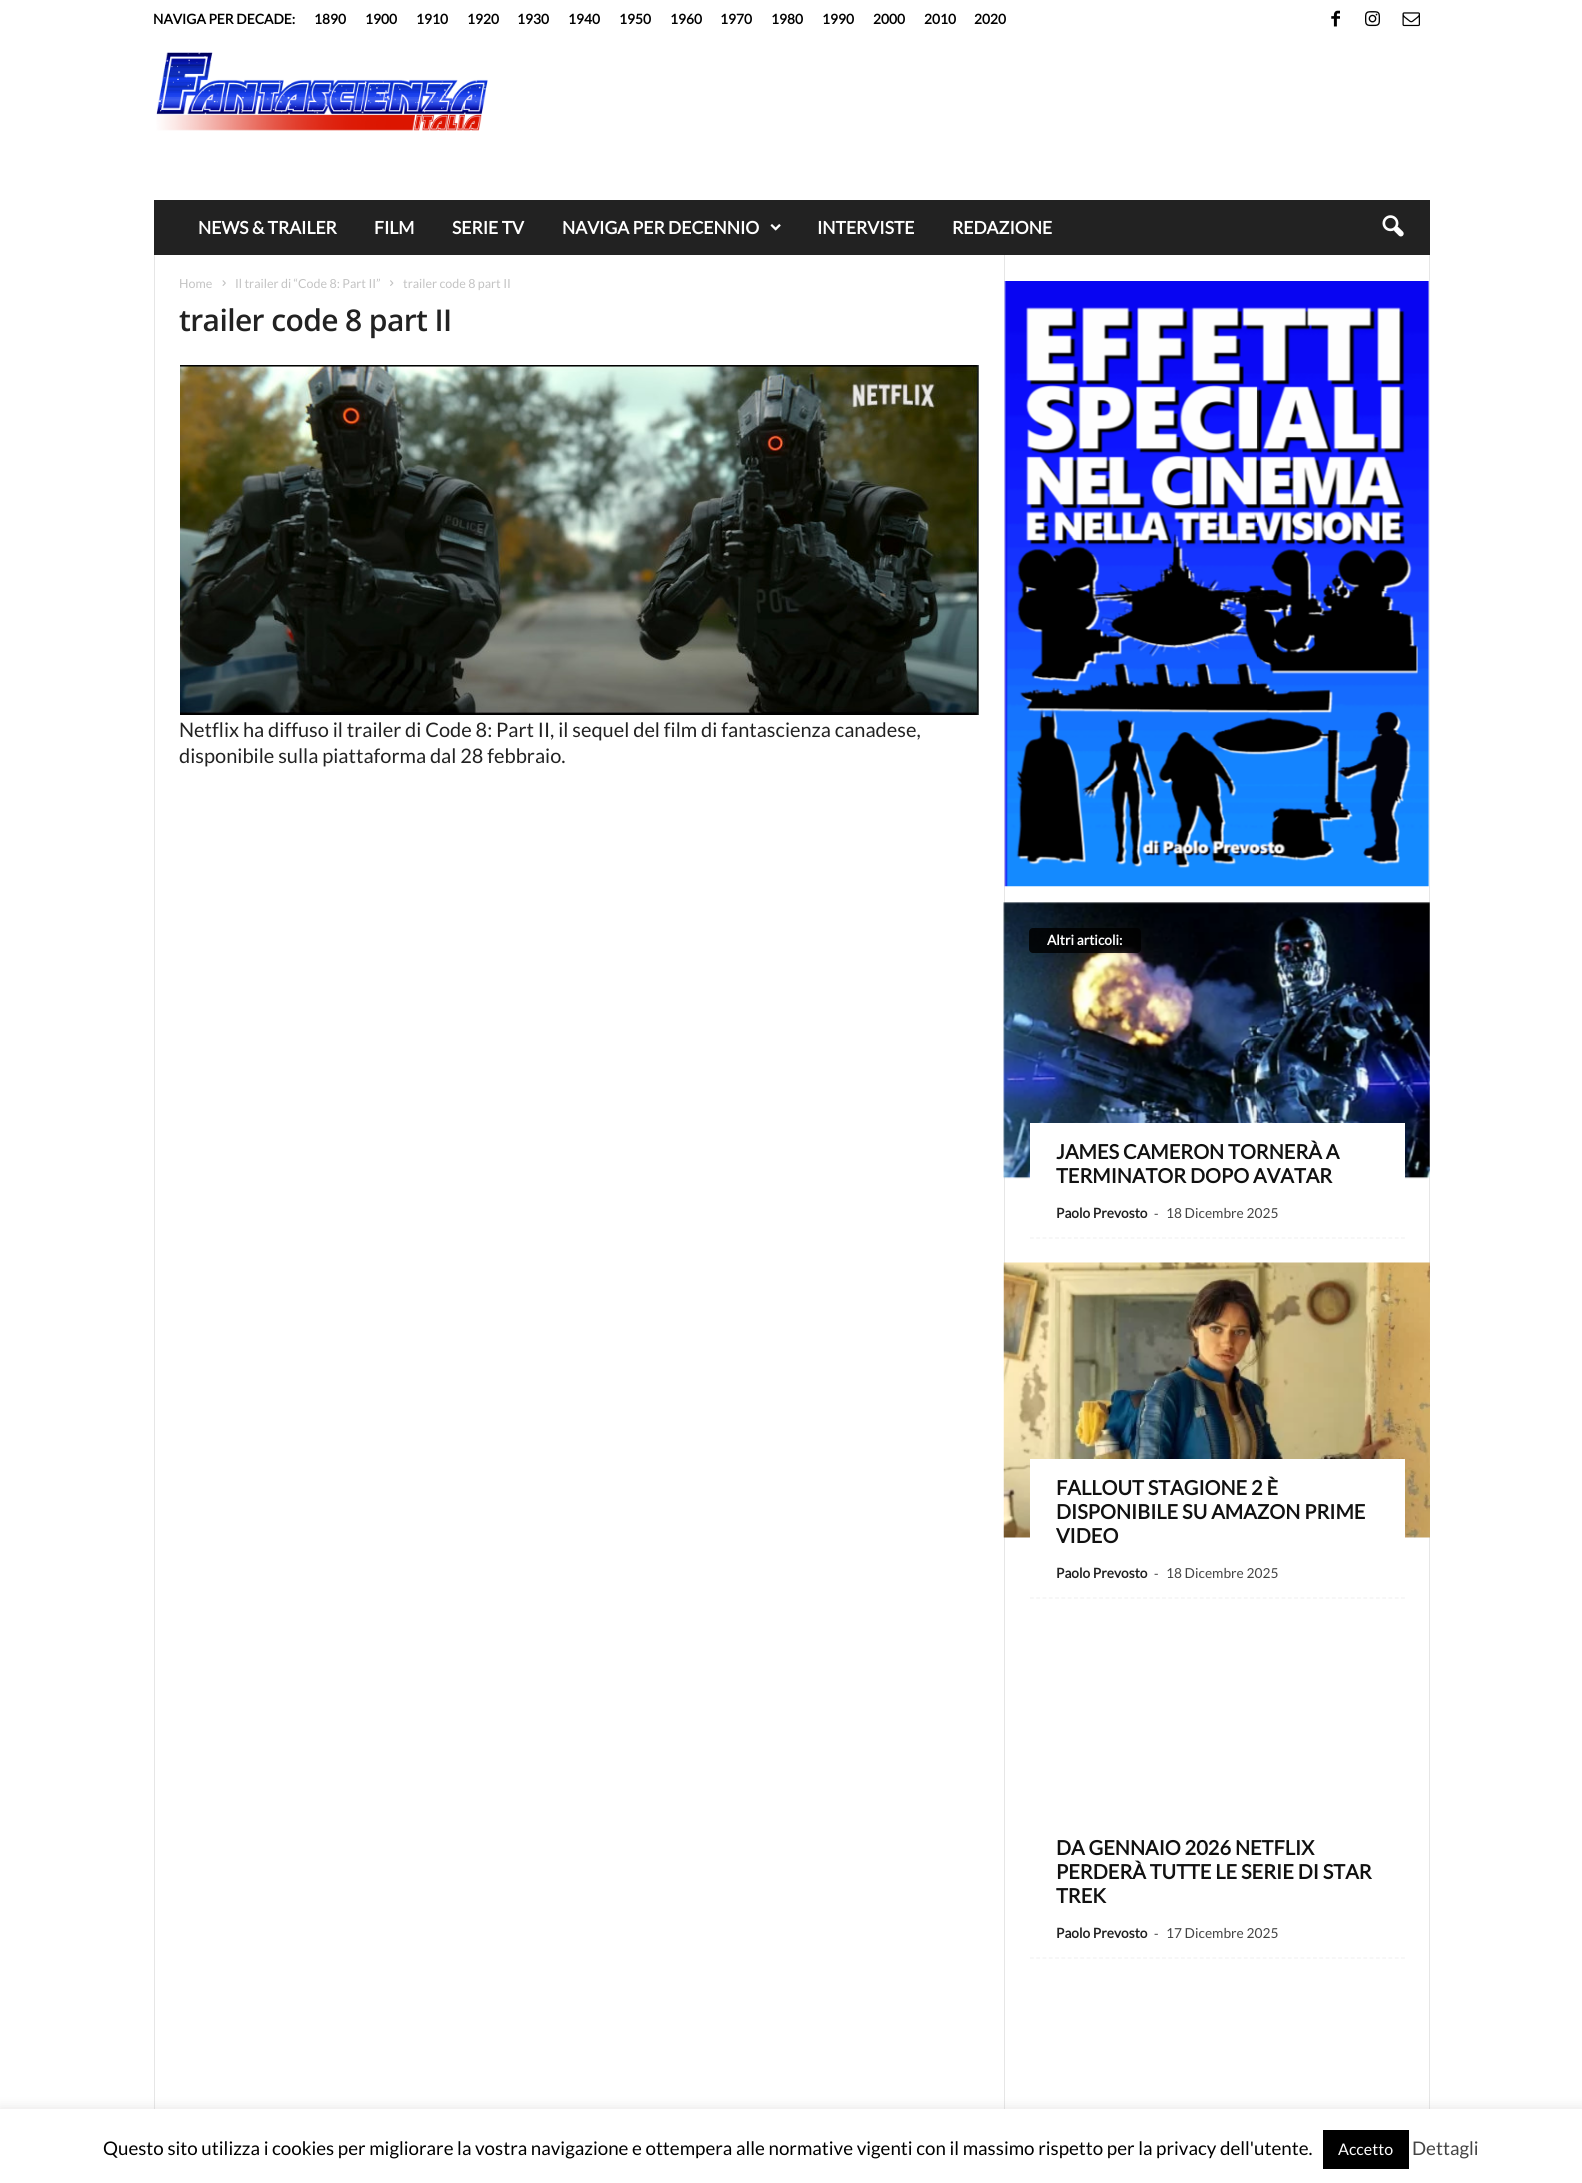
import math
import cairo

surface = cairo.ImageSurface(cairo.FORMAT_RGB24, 1582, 2183)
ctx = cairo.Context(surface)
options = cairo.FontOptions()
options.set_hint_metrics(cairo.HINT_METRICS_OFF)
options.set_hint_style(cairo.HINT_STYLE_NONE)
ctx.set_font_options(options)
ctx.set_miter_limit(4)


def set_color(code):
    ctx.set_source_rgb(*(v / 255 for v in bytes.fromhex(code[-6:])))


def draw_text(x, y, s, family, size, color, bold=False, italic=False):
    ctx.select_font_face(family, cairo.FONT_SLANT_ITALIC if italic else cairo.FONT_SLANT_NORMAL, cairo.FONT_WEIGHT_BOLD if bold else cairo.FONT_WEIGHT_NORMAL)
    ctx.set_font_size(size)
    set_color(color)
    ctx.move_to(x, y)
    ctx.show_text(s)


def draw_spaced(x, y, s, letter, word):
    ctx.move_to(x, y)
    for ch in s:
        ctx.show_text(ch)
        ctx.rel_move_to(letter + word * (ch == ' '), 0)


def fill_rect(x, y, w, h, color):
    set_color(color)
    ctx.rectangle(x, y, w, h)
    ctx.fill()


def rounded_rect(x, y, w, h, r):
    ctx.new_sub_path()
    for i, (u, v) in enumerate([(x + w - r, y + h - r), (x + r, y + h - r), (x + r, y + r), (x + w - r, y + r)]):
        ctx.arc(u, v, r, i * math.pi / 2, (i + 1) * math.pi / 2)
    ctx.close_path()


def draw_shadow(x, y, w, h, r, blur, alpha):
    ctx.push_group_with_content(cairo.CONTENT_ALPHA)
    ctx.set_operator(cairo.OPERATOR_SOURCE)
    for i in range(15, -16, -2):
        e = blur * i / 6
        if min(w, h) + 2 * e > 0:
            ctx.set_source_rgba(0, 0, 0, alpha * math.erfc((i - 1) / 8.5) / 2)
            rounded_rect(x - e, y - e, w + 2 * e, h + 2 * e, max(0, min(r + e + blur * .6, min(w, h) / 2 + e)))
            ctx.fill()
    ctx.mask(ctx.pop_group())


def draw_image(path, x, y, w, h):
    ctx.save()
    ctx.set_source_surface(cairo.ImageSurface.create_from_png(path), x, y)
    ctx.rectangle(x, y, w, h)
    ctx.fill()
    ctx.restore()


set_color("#ffffff")
ctx.paint()
draw_text(153, 24, "NAVIGA PER DECADE:", "Lato", 13.75, "#000000", bold=True)
draw_text(314, 24, "1890", "Lato", 13.75, "#000000", bold=True)
draw_text(365, 24, "1900", "Lato", 13.75, "#000000", bold=True)
draw_text(416, 24, "1910", "Lato", 13.75, "#000000", bold=True)
draw_text(467, 24, "1920", "Lato", 13.75, "#000000", bold=True)
draw_text(517, 24, "1930", "Lato", 13.75, "#000000", bold=True)
draw_text(568, 24, "1940", "Lato", 13.75, "#000000", bold=True)
draw_text(619, 24, "1950", "Lato", 13.75, "#000000", bold=True)
draw_text(670, 24, "1960", "Lato", 13.75, "#000000", bold=True)
draw_text(720, 24, "1970", "Lato", 13.75, "#000000", bold=True)
draw_text(771, 24, "1980", "Lato", 13.75, "#000000", bold=True)
draw_text(822, 24, "1990", "Lato", 13.75, "#000000", bold=True)
draw_text(873, 24, "2000", "Lato", 13.75, "#000000", bold=True)
draw_text(924, 24, "2010", "Lato", 13.75, "#000000", bold=True)
draw_text(974, 24, "2020", "Lato", 13.75, "#000000", bold=True)
draw_image("assets/img1.png", 1331, 10, 9, 17)
draw_image("assets/img2.png", 1365, 11, 15, 16)
draw_image("assets/img3.png", 1402, 12, 18, 15)
draw_image("assets/img4.png", 156, 52, 332, 79)
fill_rect(154, 200, 1276, 55, "#222222")
draw_text(198, 234, "NEWS & TRAILER", "Lato", 17.5, "#ffffff", bold=True)
draw_text(374, 234, "FILM", "Lato", 17.5, "#ffffff", bold=True)
draw_text(452, 234, "SERIE TV", "Lato", 17.5, "#ffffff", bold=True)
draw_text(562, 234, "NAVIGA PER DECENNIO", "Lato", 17.5, "#ffffff", bold=True)
draw_image("assets/img5.png", 770, 224, 11, 7)
draw_text(817, 234, "INTERVISTE", "Lato", 17.5, "#ffffff", bold=True)
draw_text(952, 234, "REDAZIONE", "Lato", 17.5, "#ffffff", bold=True)
draw_image("assets/img6.png", 1382, 215, 22, 22)
fill_rect(154, 255, 1, 1854, "#e6e6e6")
draw_text(179, 288, "Home", "Lato", 12.5, "#c3c3c3")
draw_image("assets/img7.png", 222, 280, 4, 6)
draw_text(235, 288, "Il trailer di “Code 8: Part II”", "Lato", 12.5, "#c3c3c3")
draw_image("assets/img8.png", 390, 280, 4, 6)
draw_text(403, 288, "trailer code 8 part II", "Lato", 12.5, "#c3c3c3")
ctx.select_font_face("Open Sans SemiBold")
ctx.set_font_size(30)
set_color("#222222")
draw_spaced(179, 331, "trailer code 8 part II", -0.6, 0)
draw_image("assets/img9.png", 180, 365, 799, 350)
draw_text(179, 737, "Netflix ha diffuso il trailer di Code 8: Part II, il sequel del film di fantascienza canadese,", "Lato", 20, "#222222")
draw_text(179, 763, "disponibile sulla piattaforma dal 28 febbraio.", "Lato", 20, "#222222")
fill_rect(1004, 255, 1, 1854, "#e6e6e6")
draw_image("assets/img10.png", 1004, 281, 425, 606)
fill_rect(1429, 255, 1, 1854, "#e6e6e6")
draw_image("assets/img11.png", 1003, 902, 427, 277)
ctx.set_source_rgba(0, 0, 0, 0.85)
rounded_rect(1029, 928, 112, 25, 4)
ctx.fill()
draw_text(1047, 945, "Altri articoli:", "Lato", 13.75, "#ffffff", bold=True)
fill_rect(1030, 1123, 375, 56, "#ffffff")
ctx.new_path()
ctx.move_to(1030, 1238)
ctx.line_to(1405, 1238)
set_color("#f1f1f1")
ctx.set_line_width(1.2)
ctx.set_dash([3.75, 2.54])
ctx.stroke()
draw_text(1056, 1159, "JAMES CAMERON TORNERÀ A", "Lato", 20, "#111111", bold=True)
draw_text(1056, 1183, "TERMINATOR DOPO AVATAR", "Lato", 20, "#111111", bold=True)
draw_text(1056, 1218, "Paolo Prevosto", "Lato", 13.75, "#222222", bold=True)
draw_text(1154, 1218, "-", "Open Sans", 13.75, "#444444")
draw_text(1166, 1218, "18 Dicembre 2025", "Lato", 13.75, "#444444")
draw_image("assets/img12.png", 1003, 1262, 427, 276)
fill_rect(1030, 1459, 375, 79, "#ffffff")
ctx.new_path()
ctx.move_to(1030, 1598)
ctx.line_to(1405, 1598)
set_color("#f1f1f1")
ctx.stroke()
draw_text(1056, 1495, "FALLOUT STAGIONE 2 È", "Lato", 20, "#111111", bold=True)
draw_text(1056, 1519, "DISPONIBILE SU AMAZON PRIME", "Lato", 20, "#111111", bold=True)
draw_text(1056, 1543, "VIDEO", "Lato", 20, "#111111", bold=True)
draw_text(1056, 1578, "Paolo Prevosto", "Lato", 13.75, "#222222", bold=True)
draw_text(1154, 1578, "-", "Open Sans", 13.75, "#444444")
draw_text(1166, 1578, "18 Dicembre 2025", "Lato", 13.75, "#444444")
ctx.new_path()
ctx.move_to(1030, 1958)
ctx.line_to(1405, 1958)
set_color("#f1f1f1")
ctx.stroke()
draw_text(1056, 1855, "DA GENNAIO 2026 NETFLIX", "Lato", 20, "#111111", bold=True)
draw_text(1056, 1879, "PERDERÀ TUTTE LE SERIE DI STAR", "Lato", 20, "#111111", bold=True)
draw_text(1056, 1903, "TREK", "Lato", 20, "#111111", bold=True)
draw_text(1056, 1938, "Paolo Prevosto", "Lato", 13.75, "#222222", bold=True)
draw_text(1154, 1938, "-", "Open Sans", 13.75, "#444444")
draw_text(1166, 1938, "17 Dicembre 2025", "Lato", 13.75, "#444444")
set_color("#acabab")
draw_shadow(0, 2108, 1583, 75, 0, 6, 0.3)
fill_rect(0, 2109, 1582, 74, "#ffffff")
draw_text(103, 2155, "Questo sito utilizza i cookies per migliorare la vostra navigazione e ottempera alle normative vigenti con il massimo rispetto per la privacy dell'utente.", "Lato", 18.75, "#000000")
fill_rect(1323, 2130, 86, 39, "#000000")
draw_text(1338, 2155, "Accetto", "Lato", 16, "#ffffff")
draw_text(1412, 2155, "Dettagli", "Lato", 18.75, "#444444")
surface.write_to_png("output.png")
